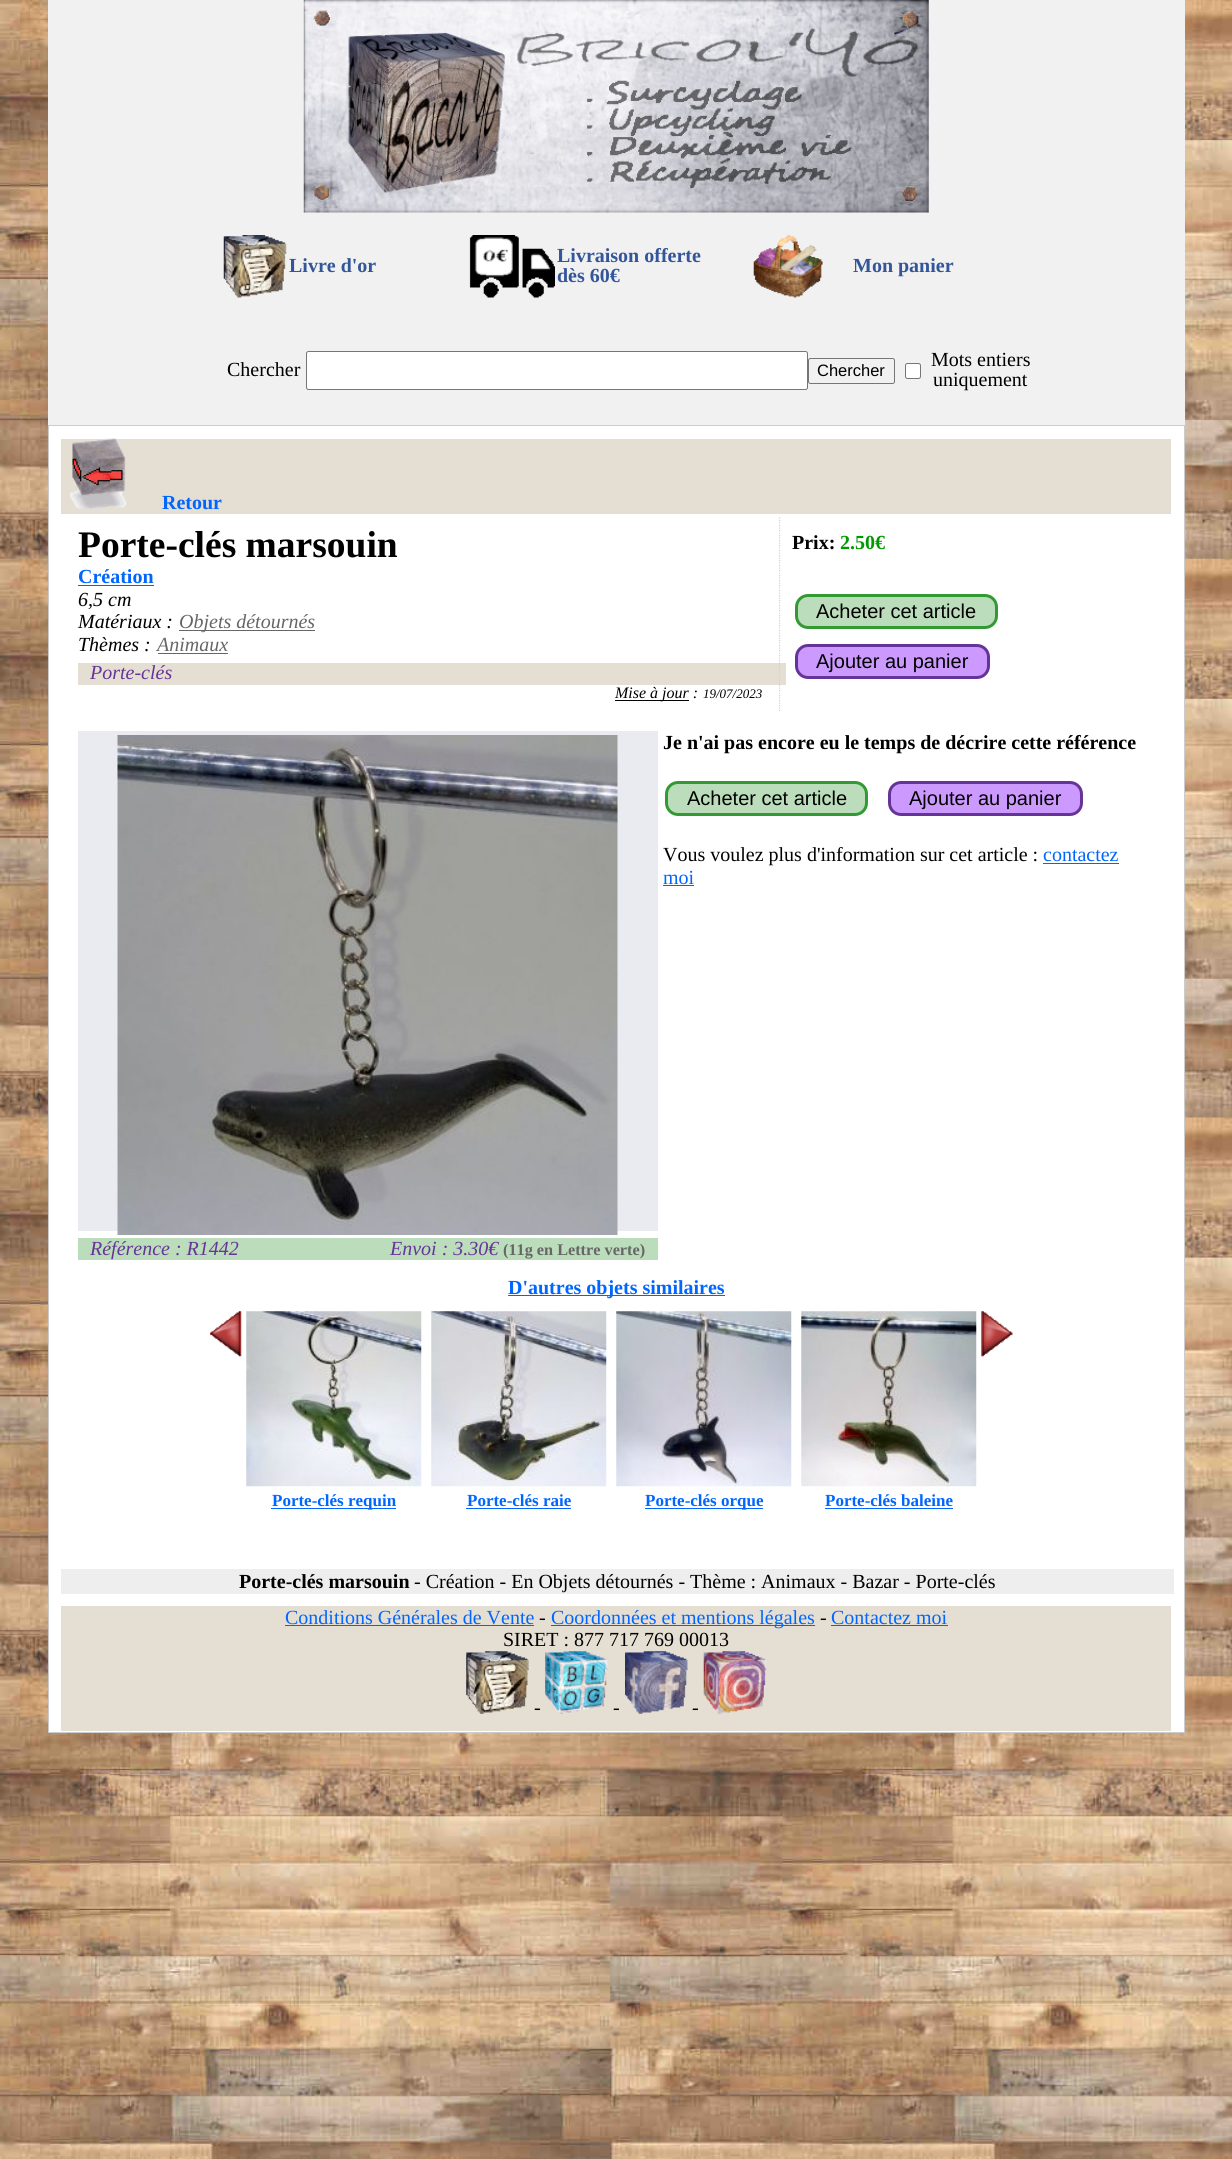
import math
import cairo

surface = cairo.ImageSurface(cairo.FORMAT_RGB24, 1232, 2159)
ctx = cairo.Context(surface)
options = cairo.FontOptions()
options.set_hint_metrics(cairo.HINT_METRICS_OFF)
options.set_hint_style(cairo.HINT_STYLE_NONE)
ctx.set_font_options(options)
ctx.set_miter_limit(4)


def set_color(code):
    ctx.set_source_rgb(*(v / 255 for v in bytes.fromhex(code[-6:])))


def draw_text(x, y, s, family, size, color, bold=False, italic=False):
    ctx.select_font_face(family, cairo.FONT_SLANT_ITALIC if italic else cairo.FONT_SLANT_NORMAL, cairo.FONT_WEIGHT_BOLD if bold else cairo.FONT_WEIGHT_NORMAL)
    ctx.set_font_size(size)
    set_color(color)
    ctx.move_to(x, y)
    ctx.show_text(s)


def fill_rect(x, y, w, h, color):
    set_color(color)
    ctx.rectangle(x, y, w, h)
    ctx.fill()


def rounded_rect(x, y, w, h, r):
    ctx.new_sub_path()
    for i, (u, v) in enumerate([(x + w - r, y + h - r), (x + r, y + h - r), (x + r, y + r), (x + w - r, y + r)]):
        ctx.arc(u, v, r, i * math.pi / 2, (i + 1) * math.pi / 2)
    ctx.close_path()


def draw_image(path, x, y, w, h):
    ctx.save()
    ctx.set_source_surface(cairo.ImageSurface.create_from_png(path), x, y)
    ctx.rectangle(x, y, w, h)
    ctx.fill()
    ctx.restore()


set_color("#ffffff")
ctx.paint()
draw_image("assets/img1.png", 0, 0, 1232, 2159)
fill_rect(48, 0, 1137, 425, "#f1f1f1")
draw_image("assets/img2.png", 303, 0, 626, 213)
draw_image("assets/img3.png", 223, 235, 64, 63)
draw_text(289, 272, "Livre d'or", "Liberation Serif", 20, "#335599", bold=True)
draw_image("assets/img4.png", 469, 235, 86, 63)
draw_text(557, 262, "Livraison offerte", "Liberation Serif", 20, "#335599", bold=True)
draw_text(557, 282, "dès 60€", "Liberation Serif", 20, "#335599", bold=True)
draw_image("assets/img5.png", 753, 235, 70, 63)
draw_text(853, 272, "Mon panier", "Liberation Serif", 20, "#335599", bold=True)
draw_text(227, 376, "Chercher", "Liberation Serif", 20, "#000000")
set_color("#ffffff")
rounded_rect(306.5, 351.5, 501, 38, 2)
ctx.fill_preserve()
set_color("#767676")
ctx.set_line_width(1)
ctx.stroke()
rounded_rect(808.5, 358.5, 86, 25, 2)
ctx.stroke()
draw_text(817, 376, "Chercher", "Liberation Sans", 16.5, "#000000")
set_color("#ffffff")
rounded_rect(905.5, 363.5, 15, 15, 2)
ctx.fill_preserve()
set_color("#767676")
ctx.stroke()
draw_text(931, 366, "Mots entiers", "Liberation Serif", 20, "#000000")
draw_text(933, 386, "uniquement", "Liberation Serif", 20, "#000000")
set_color("#ffffff")
ctx.rectangle(48.5, 425.5, 1136, 1307)
ctx.fill_preserve()
set_color("#cccccc")
ctx.stroke()
fill_rect(61, 439, 1110, 75, "#e5ded2")
draw_image("assets/img6.png", 70, 438, 57, 71)
draw_text(162, 509, "Retour", "Liberation Serif", 20, "#0066ff", bold=True)
draw_text(78, 557, "Porte-clés marsouin", "Liberation Serif", 37.5, "#000000", bold=True)
draw_text(78, 583, "Création", "Liberation Serif", 20, "#0066ff", bold=True)
fill_rect(78, 585, 76, 1, "#0066ff")
draw_text(78, 606, "6,5 cm", "Liberation Serif", 20, "#000000", italic=True)
draw_text(78, 628, "Matériaux :", "Liberation Serif", 20, "#000000", italic=True)
fill_rect(179, 630, 136, 1, "#666666")
draw_text(179, 628, "Objets détournés", "Liberation Serif", 20, "#666666", italic=True)
draw_text(78, 651, "Thèmes :", "Liberation Serif", 20, "#000000", italic=True)
draw_text(157, 651, "Animaux", "Liberation Serif", 20, "#666666", italic=True)
fill_rect(158, 653, 70, 1, "#666666")
fill_rect(78, 663, 708, 22, "#e5ded2")
draw_text(90, 679, "Porte-clés", "Liberation Serif", 20, "#663399", italic=True)
fill_rect(615, 700, 74, 1, "#000000")
draw_text(615, 698, "Mise à jour :", "Liberation Serif", 16, "#000000", italic=True)
draw_text(703, 698, "19/07/2023", "Liberation Serif", 13, "#000000", italic=True)
ctx.new_path()
ctx.move_to(779.5, 517.5)
ctx.line_to(779.5, 711)
set_color("#c9d4d7")
ctx.set_line_width(1.2)
ctx.set_dash([1.25, 1.25])
ctx.stroke()
draw_text(792, 549, "Prix:", "Liberation Serif", 20, "#000000", bold=True)
draw_text(840, 549, "2.50€", "Liberation Serif", 20, "#009900", bold=True)
set_color("#bbddbb")
rounded_rect(796.5, 595.5, 200, 32, 11.5)
ctx.fill_preserve()
set_color("#339933")
ctx.set_line_width(3)
ctx.set_dash([])
ctx.stroke()
draw_text(816, 618, "Acheter cet article", "Liberation Sans", 20, "#000000")
set_color("#cc99ff")
rounded_rect(796.5, 645.5, 192, 32, 11.5)
ctx.fill_preserve()
set_color("#663399")
ctx.stroke()
draw_text(816, 668, "Ajouter au panier", "Liberation Sans", 20, "#000000")
draw_text(663, 749, "Je n'ai pas encore eu le temps de décrire cette référence", "Liberation Serif", 20, "#000000", bold=True)
set_color("#bbddbb")
rounded_rect(666.5, 782.5, 200, 32, 11.5)
ctx.fill_preserve()
set_color("#339933")
ctx.stroke()
draw_text(687, 805, "Acheter cet article", "Liberation Sans", 20, "#000000")
set_color("#cc99ff")
rounded_rect(889.5, 782.5, 192, 32, 11.5)
ctx.fill_preserve()
set_color("#663399")
ctx.stroke()
draw_text(909, 805, "Ajouter au panier", "Liberation Sans", 20, "#000000")
draw_text(663, 861, "Vous voulez plus d'information sur cet article :", "Liberation Serif", 20, "#000000")
draw_text(1043, 861, "contactez", "Liberation Serif", 20, "#0066ff")
fill_rect(1043, 863, 76, 1, "#0066ff")
draw_text(663, 884, "moi", "Liberation Serif", 20, "#0066ff")
fill_rect(663, 885, 31, 1, "#0066ff")
fill_rect(78, 731, 580, 500, "#eaebf0")
draw_image("assets/img7.png", 117, 735, 501, 500)
fill_rect(78, 1238, 580, 22, "#bbddbb")
draw_text(90, 1255, "Référence : R1442", "Liberation Serif", 20, "#663399", italic=True)
draw_text(390, 1255, "Envoi : 3.30€", "Liberation Serif", 20, "#663399", italic=True)
draw_text(503, 1255, "(11g en Lettre verte)", "Liberation Serif", 16.25, "#666666", bold=True)
fill_rect(508, 1295, 217, 1, "#0066ff")
draw_text(508, 1294, "D'autres objets similaires", "Liberation Serif", 20, "#0066ff", bold=True)
draw_image("assets/img8.png", 210, 1311, 32, 46)
draw_image("assets/img9.png", 981, 1311, 32, 46)
draw_image("assets/img10.png", 246, 1311, 176, 176)
fill_rect(271, 1508, 125, 1, "#0066ff")
draw_text(272, 1506, "Porte-clés requin", "Liberation Serif", 17, "#0066ff", bold=True)
draw_image("assets/img11.png", 431, 1311, 176, 176)
draw_text(467, 1506, "Porte-clés raie", "Liberation Serif", 17, "#0066ff", bold=True)
fill_rect(466, 1508, 105, 1, "#0066ff")
draw_image("assets/img12.png", 616, 1311, 176, 176)
fill_rect(645, 1508, 118, 1, "#0066ff")
draw_text(645, 1506, "Porte-clés orque", "Liberation Serif", 17, "#0066ff", bold=True)
draw_image("assets/img13.png", 801, 1311, 176, 176)
draw_text(825, 1506, "Porte-clés baleine", "Liberation Serif", 17, "#0066ff", bold=True)
fill_rect(825, 1508, 128, 1, "#0066ff")
fill_rect(61, 1569, 1113, 25, "#eeeeee")
draw_text(239, 1588, "Porte-clés marsouin", "Liberation Serif", 20, "#000000", bold=True)
draw_text(414, 1588, "- Création - En Objets détournés - Thème : Animaux - Bazar - Porte-clés", "Liberation Serif", 20, "#000000")
fill_rect(61, 1606, 1110, 125, "#e5ded2")
draw_text(285, 1624, "Conditions Générales de Vente", "Liberation Serif", 20, "#0066ff")
fill_rect(285, 1625, 249, 1, "#0066ff")
draw_text(539, 1624, "-", "Liberation Serif", 20, "#000000")
fill_rect(551, 1625, 264, 1, "#0066ff")
draw_text(551, 1624, "Coordonnées et mentions légales", "Liberation Serif", 20, "#0066ff")
draw_text(820, 1624, "-", "Liberation Serif", 20, "#000000")
draw_text(831, 1624, "Contactez moi", "Liberation Serif", 20, "#0066ff")
fill_rect(831, 1625, 117, 1, "#0066ff")
draw_text(503, 1646, "SIRET : 877 717 769 00013", "Liberation Serif", 20, "#000000")
draw_image("assets/img14.png", 466, 1651, 63, 63)
draw_text(534, 1714, "-", "Liberation Serif", 20, "#000000")
draw_image("assets/img15.png", 545, 1651, 63, 63)
draw_text(613, 1714, "-", "Liberation Serif", 20, "#000000")
draw_image("assets/img16.png", 625, 1651, 63, 63)
draw_text(692, 1714, "-", "Liberation Serif", 20, "#000000")
draw_image("assets/img17.png", 703, 1651, 64, 63)
surface.write_to_png("output.png")
